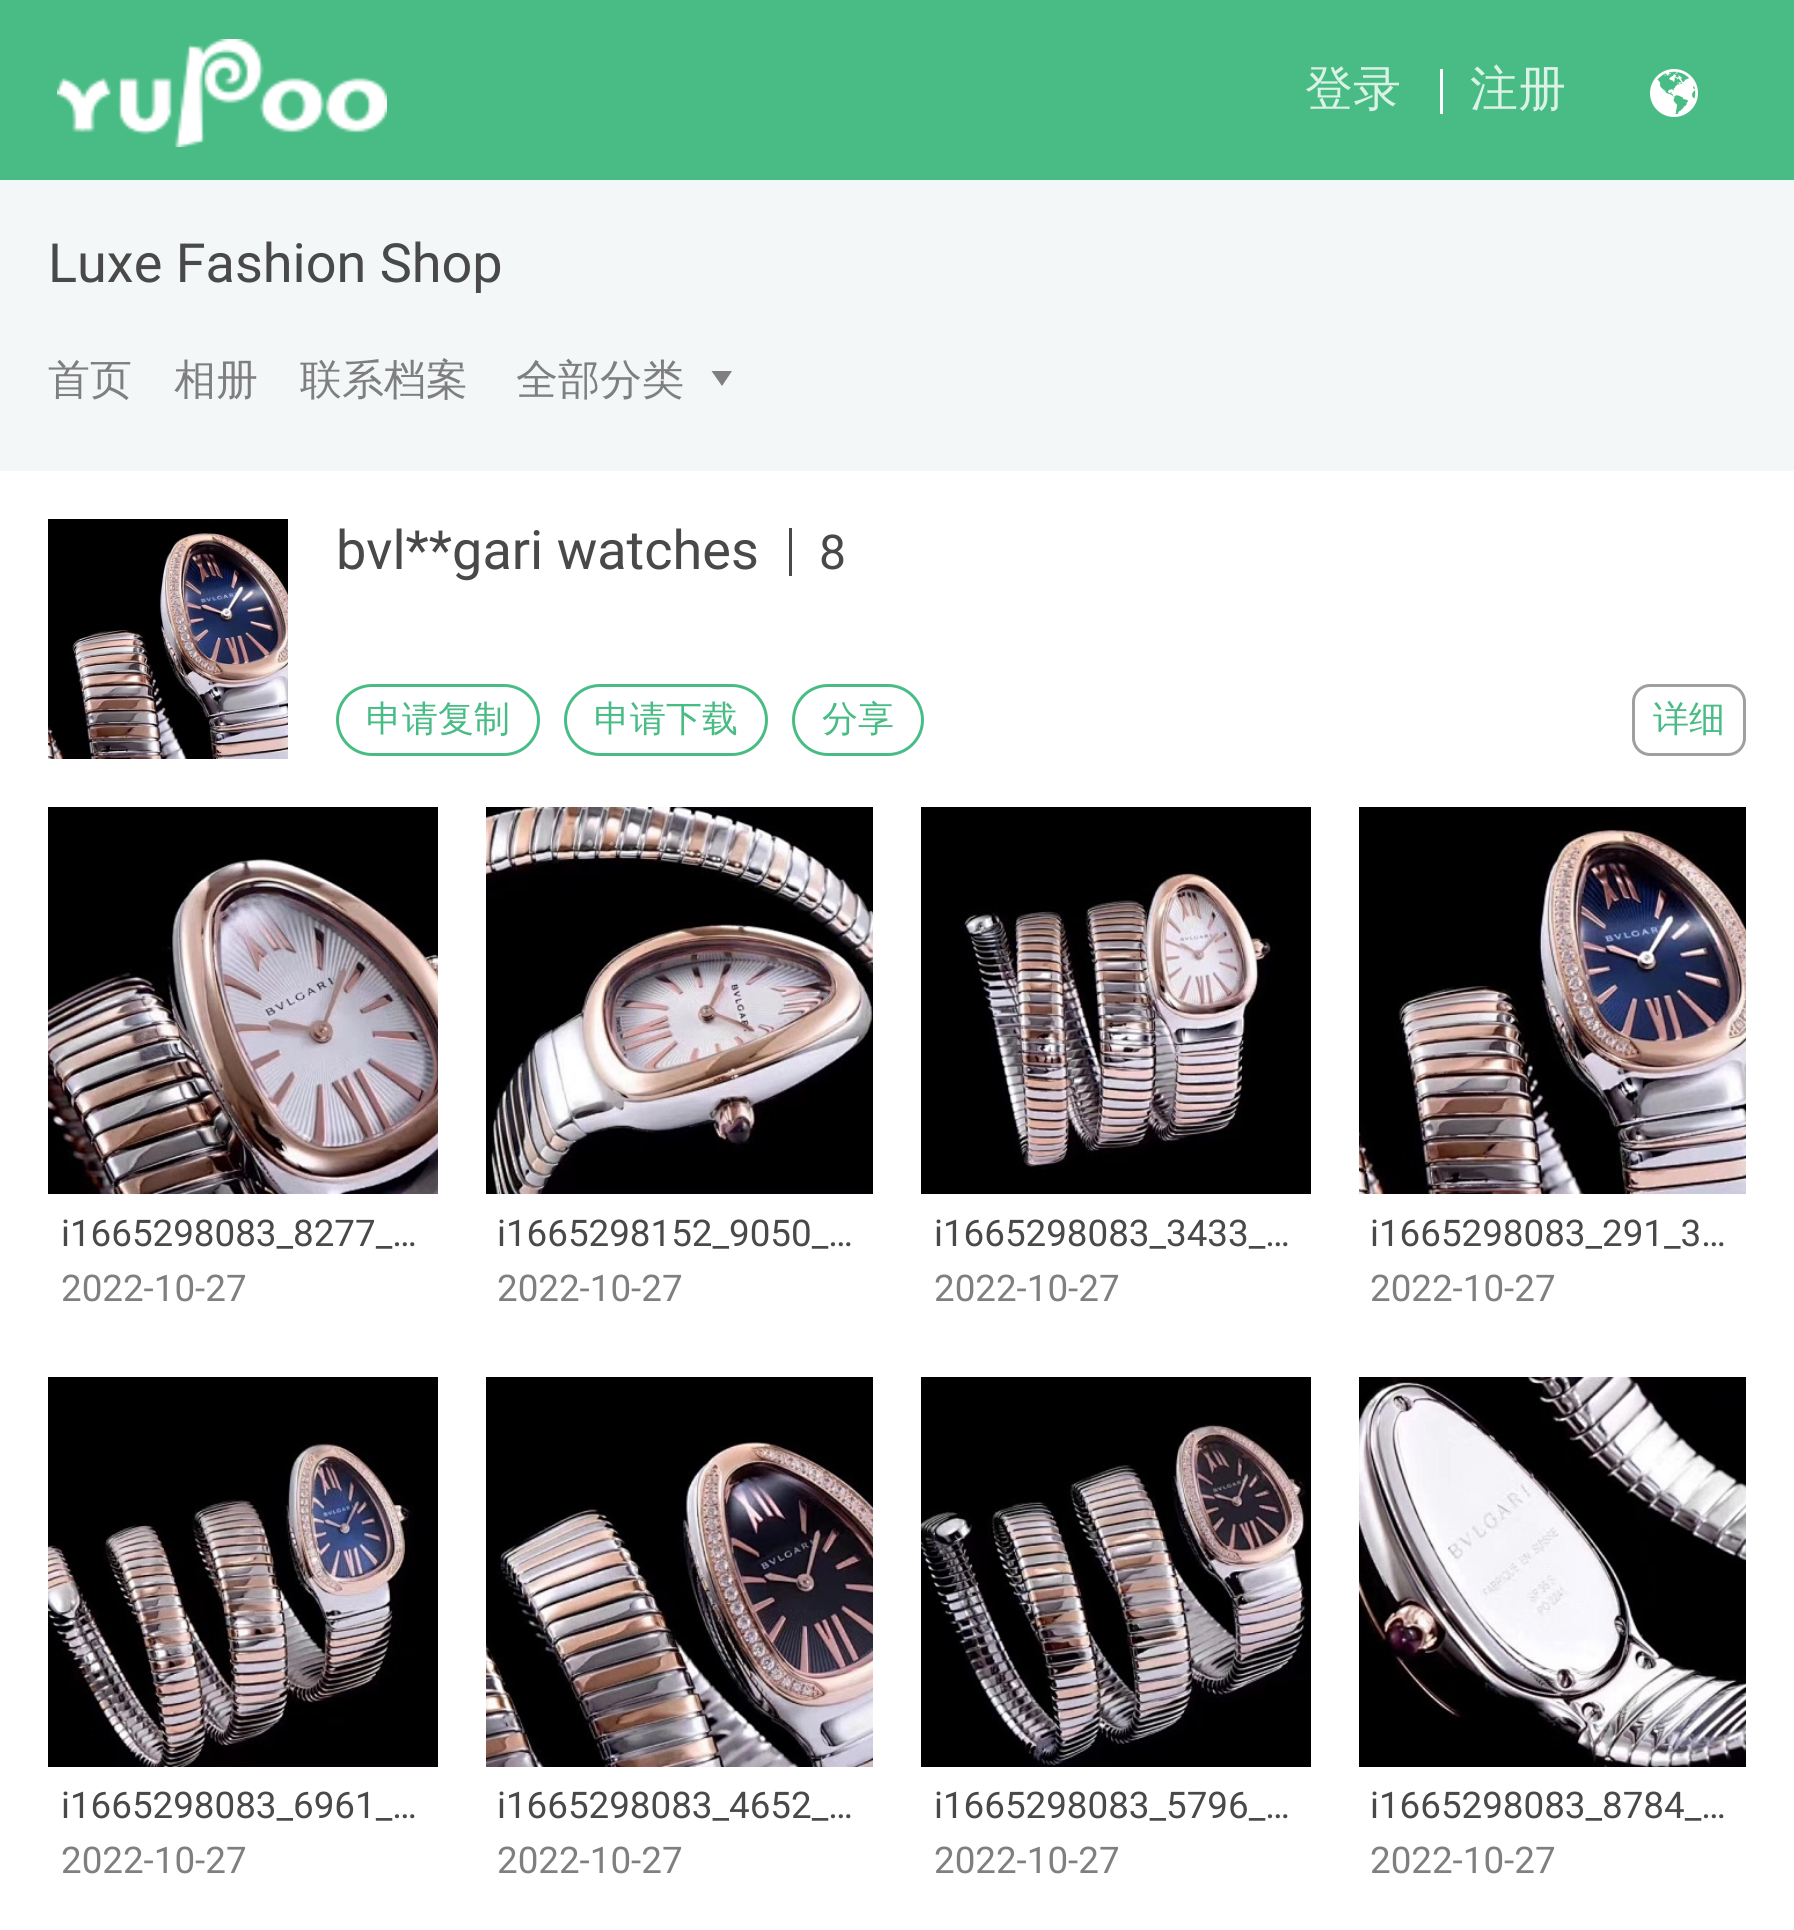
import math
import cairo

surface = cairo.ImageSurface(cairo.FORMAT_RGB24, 1794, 1930)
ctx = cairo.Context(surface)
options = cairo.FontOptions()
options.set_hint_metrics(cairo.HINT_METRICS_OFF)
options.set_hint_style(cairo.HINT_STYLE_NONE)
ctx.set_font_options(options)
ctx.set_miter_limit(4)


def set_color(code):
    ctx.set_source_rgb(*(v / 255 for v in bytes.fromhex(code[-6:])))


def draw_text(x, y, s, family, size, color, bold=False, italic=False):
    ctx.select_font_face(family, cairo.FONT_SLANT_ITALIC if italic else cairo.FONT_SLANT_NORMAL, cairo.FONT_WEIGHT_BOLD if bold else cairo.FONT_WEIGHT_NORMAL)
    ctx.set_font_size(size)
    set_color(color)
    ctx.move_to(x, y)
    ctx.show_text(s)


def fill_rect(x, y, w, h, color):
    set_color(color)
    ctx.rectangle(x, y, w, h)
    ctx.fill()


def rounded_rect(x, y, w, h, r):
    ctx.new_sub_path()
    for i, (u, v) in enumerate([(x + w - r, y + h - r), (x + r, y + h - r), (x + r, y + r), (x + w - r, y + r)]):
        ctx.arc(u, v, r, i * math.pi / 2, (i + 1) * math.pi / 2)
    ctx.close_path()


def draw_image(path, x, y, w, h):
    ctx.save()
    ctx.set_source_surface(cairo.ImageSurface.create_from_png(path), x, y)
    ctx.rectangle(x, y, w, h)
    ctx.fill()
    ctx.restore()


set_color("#ffffff")
ctx.paint()
fill_rect(0, 0, 1794, 180, "#49bc85")
draw_image("assets/img1.png", 57, 39, 330, 108)
draw_text(1305, 105, "登录", "WenQuanYi Zen Hei Medium", 48, "#dbf2e7")
fill_rect(1440, 69, 3, 45, "#ffffff")
draw_text(1470, 105, "注册", "WenQuanYi Zen Hei Medium", 48, "#dbf2e7")
draw_image("assets/img2.png", 1650, 69, 48, 48)
fill_rect(0, 180, 1794, 291, "#f3f7f7")
draw_text(48, 282, "Luxe Fashion Shop", "Roboto", 54, "#494949")
draw_text(48, 394, "首页", "WenQuanYi Zen Hei Medium", 42, "#7f7f7f")
draw_text(174, 394, "相册", "WenQuanYi Zen Hei Medium", 42, "#7f7f7f")
draw_text(300, 394, "联系档案", "WenQuanYi Zen Hei Medium", 42, "#7f7f7f")
draw_text(516, 394, "全部分类", "WenQuanYi Zen Hei Medium", 42, "#7f7f7f")
ctx.new_path()
ctx.move_to(722, 386)
ctx.line_to(711.5, 371)
ctx.line_to(732, 371)
ctx.close_path()
ctx.fill()
draw_image("assets/img3.png", 48, 519, 240, 240)
draw_text(336, 569, "bvl**gari watches", "Roboto", 54, "#494949")
fill_rect(789, 528, 3, 48, "#494949")
draw_text(819, 569, "8", "Roboto", 48, "#494949")
rounded_rect(337.5, 685.5, 201, 69, 34.5)
set_color("#49bc85")
ctx.set_line_width(3)
ctx.stroke()
draw_text(366, 731, "申请复制", "WenQuanYi Zen Hei Medium", 36, "#49bc85")
rounded_rect(565.5, 685.5, 201, 69, 34.5)
ctx.stroke()
draw_text(594, 731, "申请下载", "WenQuanYi Zen Hei Medium", 36, "#49bc85")
rounded_rect(793.5, 685.5, 129, 69, 34.5)
ctx.stroke()
draw_text(822, 731, "分享", "WenQuanYi Zen Hei Medium", 36, "#49bc85")
rounded_rect(1633.5, 685.5, 111, 69, 16.5)
set_color("#9f9f9f")
ctx.stroke()
draw_text(1653, 731, "详细", "WenQuanYi Zen Hei Medium", 36, "#49bc85")
draw_image("assets/img4.png", 48, 807, 390, 387)
draw_text(61, 1246, "i1665298083_8277_…", "Roboto", 36.75, "#494949")
draw_text(61, 1301, "2022-10-27", "Roboto", 36.75, "#7f7f7f")
draw_image("assets/img5.png", 486, 807, 387, 387)
draw_text(497, 1246, "i1665298152_9050_…", "Roboto", 36.75, "#494949")
draw_text(497, 1301, "2022-10-27", "Roboto", 36.75, "#7f7f7f")
draw_image("assets/img6.png", 921, 807, 390, 387)
draw_text(934, 1246, "i1665298083_3433_…", "Roboto", 36.75, "#494949")
draw_text(934, 1301, "2022-10-27", "Roboto", 36.75, "#7f7f7f")
draw_image("assets/img7.png", 1359, 807, 387, 387)
draw_text(1370, 1246, "i1665298083_291_3…", "Roboto", 36.75, "#494949")
draw_text(1370, 1301, "2022-10-27", "Roboto", 36.75, "#7f7f7f")
draw_image("assets/img8.png", 48, 1377, 390, 390)
draw_text(61, 1818, "i1665298083_6961_…", "Roboto", 36.75, "#494949")
draw_text(61, 1873, "2022-10-27", "Roboto", 36.75, "#7f7f7f")
draw_image("assets/img9.png", 486, 1377, 387, 390)
draw_text(497, 1818, "i1665298083_4652_…", "Roboto", 36.75, "#494949")
draw_text(497, 1873, "2022-10-27", "Roboto", 36.75, "#7f7f7f")
draw_image("assets/img10.png", 921, 1377, 390, 390)
draw_text(934, 1818, "i1665298083_5796_…", "Roboto", 36.75, "#494949")
draw_text(934, 1873, "2022-10-27", "Roboto", 36.75, "#7f7f7f")
draw_image("assets/img11.png", 1359, 1377, 387, 390)
draw_text(1370, 1818, "i1665298083_8784_…", "Roboto", 36.75, "#494949")
draw_text(1370, 1873, "2022-10-27", "Roboto", 36.75, "#7f7f7f")
surface.write_to_png("output.png")
